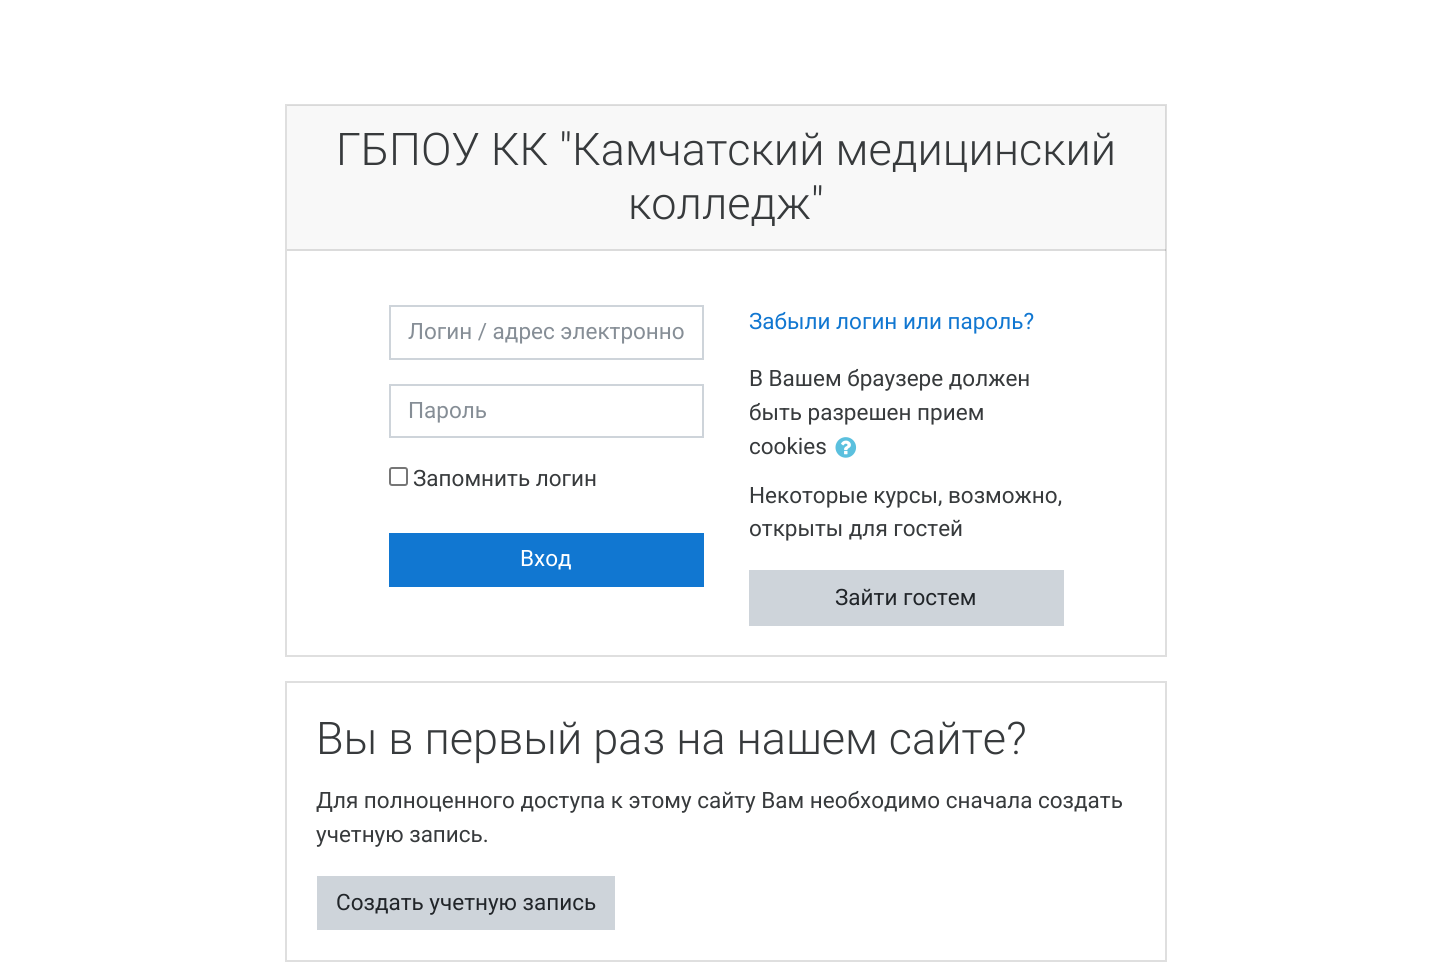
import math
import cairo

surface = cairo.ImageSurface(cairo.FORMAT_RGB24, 1451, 975)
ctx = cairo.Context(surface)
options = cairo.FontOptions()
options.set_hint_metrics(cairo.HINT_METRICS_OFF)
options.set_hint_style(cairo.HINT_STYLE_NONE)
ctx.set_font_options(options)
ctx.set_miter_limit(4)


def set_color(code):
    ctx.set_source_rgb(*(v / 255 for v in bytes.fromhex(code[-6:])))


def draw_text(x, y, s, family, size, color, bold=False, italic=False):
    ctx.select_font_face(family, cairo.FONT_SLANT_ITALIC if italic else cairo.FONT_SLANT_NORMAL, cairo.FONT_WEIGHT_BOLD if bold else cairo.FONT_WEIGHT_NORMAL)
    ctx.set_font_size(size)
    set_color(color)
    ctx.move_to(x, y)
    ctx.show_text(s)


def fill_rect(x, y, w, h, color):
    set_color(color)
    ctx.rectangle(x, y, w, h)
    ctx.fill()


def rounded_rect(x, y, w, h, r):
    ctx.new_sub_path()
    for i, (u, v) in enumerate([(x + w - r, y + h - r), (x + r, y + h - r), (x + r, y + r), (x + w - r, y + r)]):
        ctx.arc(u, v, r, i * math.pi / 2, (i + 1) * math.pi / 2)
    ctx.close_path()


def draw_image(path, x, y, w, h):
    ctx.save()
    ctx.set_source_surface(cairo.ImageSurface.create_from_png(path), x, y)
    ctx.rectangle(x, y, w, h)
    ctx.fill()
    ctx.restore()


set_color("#ffffff")
ctx.paint()
ctx.rectangle(286, 105, 880, 551)
set_color("#dfdfdf")
ctx.stroke()
ctx.set_source_rgba(0, 0, 0, 0.03)
ctx.rectangle(287, 105, 879, 146)
ctx.fill()
ctx.set_source_rgba(0, 0, 0, 0.12)
ctx.rectangle(287, 249, 879, 2)
ctx.fill()
draw_text(336, 165, "ГБПОУ КК \"Камчатский медицинский", "Roboto Light", 45, "#373a3c")
draw_text(628, 219, "колледж\"", "Roboto Light", 45, "#373a3c")
ctx.rectangle(390, 306, 313, 53)
set_color("#ced4da")
ctx.stroke()
draw_text(408, 339, "Логин / адрес электронно", "Roboto", 22.5, "#868e96")
ctx.rectangle(390, 385, 313, 52)
set_color("#ced4da")
ctx.stroke()
draw_text(408, 418, "Пароль", "Roboto", 22.5, "#868e96")
rounded_rect(390, 468, 17, 17, 2)
set_color("#767676")
ctx.stroke()
draw_text(413, 486, "Запомнить логин", "Roboto", 22.5, "#373a3c")
fill_rect(389, 533, 315, 54, "#1177d1")
draw_text(520, 566, "Вход", "Roboto", 22.5, "#ffffff")
draw_text(749, 329, "Забыли логин или пароль?", "Roboto", 22.5, "#1177d1")
draw_text(749, 386, "В Вашем браузере должен", "Roboto", 22.5, "#373a3c")
draw_text(749, 420, "быть разрешен прием", "Roboto", 22.5, "#373a3c")
draw_text(749, 454, "cookies", "Roboto", 22.5, "#373a3c")
draw_image("assets/img1.png", 835, 437, 22, 21)
draw_text(749, 503, "Некоторые курсы, возможно,", "Roboto", 22.5, "#373a3c")
draw_text(749, 536, "открыты для гостей", "Roboto", 22.5, "#373a3c")
fill_rect(749, 570, 315, 56, "#ced4da")
draw_text(835, 605, "Зайти гостем", "Roboto", 22.5, "#212529")
ctx.rectangle(286, 682, 880, 279)
set_color("#dfdfdf")
ctx.stroke()
draw_text(316, 754, "Вы в первый раз на нашем сайте?", "Roboto Light", 45, "#373a3c")
draw_text(316, 808, "Для полноценного доступа к этому сайту Вам необходимо сначала создать", "Roboto", 22.5, "#373a3c")
draw_text(316, 842, "учетную запись.", "Roboto", 22.5, "#373a3c")
fill_rect(317, 876, 298, 54, "#ced4da")
draw_text(336, 910, "Создать учетную запись", "Roboto", 22.5, "#212529")
surface.write_to_png("output.png")
